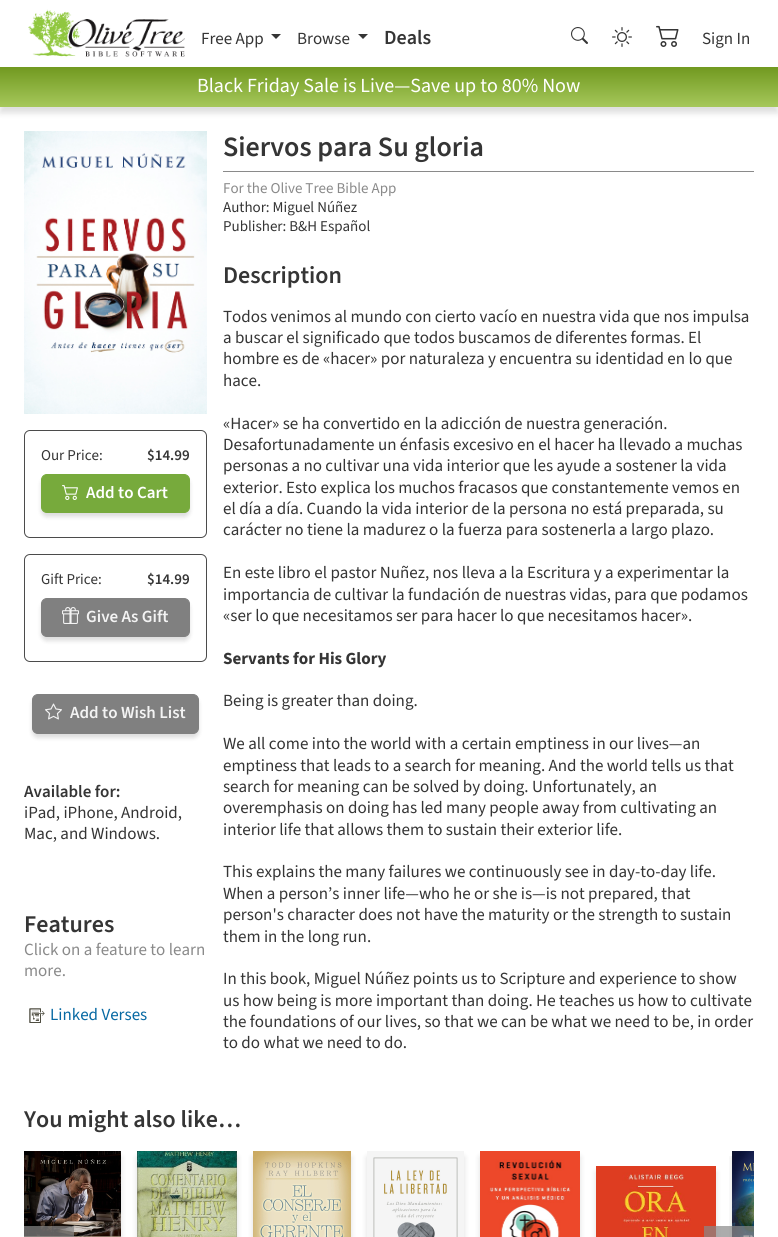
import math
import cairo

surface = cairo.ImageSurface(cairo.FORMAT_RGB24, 778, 1237)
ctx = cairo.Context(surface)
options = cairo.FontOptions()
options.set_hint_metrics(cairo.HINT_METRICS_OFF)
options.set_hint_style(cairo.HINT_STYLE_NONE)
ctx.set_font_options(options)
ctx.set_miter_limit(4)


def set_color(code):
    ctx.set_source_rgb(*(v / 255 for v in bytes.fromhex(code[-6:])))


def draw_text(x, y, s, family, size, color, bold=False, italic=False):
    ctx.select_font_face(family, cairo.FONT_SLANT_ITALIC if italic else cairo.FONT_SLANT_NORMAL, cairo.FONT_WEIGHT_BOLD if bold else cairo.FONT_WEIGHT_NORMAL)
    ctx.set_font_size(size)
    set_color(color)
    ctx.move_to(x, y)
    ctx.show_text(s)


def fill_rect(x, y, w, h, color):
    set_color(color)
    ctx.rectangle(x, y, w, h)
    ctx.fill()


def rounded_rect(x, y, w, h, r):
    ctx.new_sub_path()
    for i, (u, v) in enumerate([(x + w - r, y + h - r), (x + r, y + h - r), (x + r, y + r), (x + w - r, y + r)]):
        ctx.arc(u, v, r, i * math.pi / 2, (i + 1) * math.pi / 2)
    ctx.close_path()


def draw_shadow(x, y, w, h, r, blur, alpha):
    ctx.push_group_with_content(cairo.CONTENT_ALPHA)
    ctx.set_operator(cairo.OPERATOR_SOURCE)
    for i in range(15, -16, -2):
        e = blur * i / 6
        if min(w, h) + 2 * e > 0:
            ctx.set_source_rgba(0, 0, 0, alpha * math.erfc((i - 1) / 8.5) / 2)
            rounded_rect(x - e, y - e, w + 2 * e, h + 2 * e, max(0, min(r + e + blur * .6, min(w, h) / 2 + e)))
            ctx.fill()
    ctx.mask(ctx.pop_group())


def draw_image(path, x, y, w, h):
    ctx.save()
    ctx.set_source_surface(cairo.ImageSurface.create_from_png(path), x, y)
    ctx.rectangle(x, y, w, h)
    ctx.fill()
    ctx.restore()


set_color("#ffffff")
ctx.paint()
draw_image("assets/img1.png", 28, 9, 157, 48)
draw_text(201, 44, "Free App", "Source Sans 3", 17, "#353535")
ctx.new_path()
ctx.move_to(271, 34)
ctx.line_to(281, 34)
ctx.line_to(276, 39)
ctx.close_path()
ctx.fill()
draw_text(297, 44, "Browse", "Source Sans 3", 17, "#353535")
ctx.new_path()
ctx.move_to(358, 34)
ctx.line_to(368, 34)
ctx.line_to(363, 39)
ctx.close_path()
ctx.fill()
draw_text(384, 44, "Deals", "Source Sans 3 SemiBold", 20, "#353535")
draw_image("assets/img2.png", 571, 27, 17, 17)
draw_image("assets/img3.png", 612, 27, 20, 20)
draw_image("assets/img4.png", 656, 25, 23, 22)
draw_text(702, 44, "Sign In", "Source Sans 3", 17, "#353535")
set_color("#000000")
draw_shadow(0, 73, 778, 40, 0, 3, 0.13)
gradient = cairo.LinearGradient(389, 67, 389, 107)
gradient.add_color_stop_rgba(0, 0.443, 0.6, 0.125, 1)
gradient.add_color_stop_rgba(1, 0.651, 0.784, 0.357, 1)
ctx.set_source(gradient)
ctx.rectangle(0, 67, 778, 40)
ctx.fill()
draw_text(197, 92, "Black Friday Sale is Live—Save up to 80% Now", "Source Sans 3", 20, "#ffffff")
draw_image("assets/img5.png", 24, 131, 183, 283)
rounded_rect(24.5, 430.5, 182, 107, 5.5)
set_color("#4b4b4b")
ctx.set_line_width(1)
ctx.stroke()
draw_text(41, 460, "Our Price:", "Source Sans 3", 15, "#353535")
draw_text(147, 460, "$14.99", "Source Sans 3 SemiBold", 15, "#353535")
set_color("#000000")
draw_shadow(41, 478, 149, 39, 6, 2, 0.13)
set_color("#77aa3c")
rounded_rect(41.5, 474.5, 148, 38, 5.5)
ctx.fill_preserve()
ctx.stroke()
draw_image("assets/img6.png", 62, 485, 16, 15)
draw_text(86, 498, "Add to Cart", "Source Sans 3 SemiBold", 17, "#ffffff")
rounded_rect(24.5, 554.5, 182, 107, 5.5)
set_color("#4b4b4b")
ctx.stroke()
draw_text(41, 584, "Gift Price:", "Source Sans 3", 15, "#353535")
draw_text(147, 584, "$14.99", "Source Sans 3 SemiBold", 15, "#353535")
set_color("#000000")
draw_shadow(41, 602, 149, 39, 6, 2, 0.13)
set_color("#808080")
rounded_rect(41.5, 598.5, 148, 38, 5.5)
ctx.fill_preserve()
ctx.stroke()
draw_image("assets/img7.png", 62, 607, 17, 17)
draw_text(86, 622, "Give As Gift", "Source Sans 3 SemiBold", 17, "#f3f3f3")
set_color("#000000")
draw_shadow(32, 698, 167, 40, 6, 2, 0.13)
set_color("#808080")
rounded_rect(32.5, 694.5, 166, 39, 5.5)
ctx.fill_preserve()
ctx.stroke()
draw_image("assets/img8.png", 45, 703, 17, 17)
draw_text(70, 718, "Add to Wish List", "Source Sans 3 SemiBold", 17, "#f3f3f3")
draw_text(24, 797, "Available for:", "Source Sans 3 SemiBold", 17, "#353535")
draw_text(24, 818, "iPad, iPhone, Android,", "Source Sans 3", 17, "#353535")
draw_text(24, 839, "Mac, and Windows.", "Source Sans 3", 17, "#353535")
draw_text(24, 932, "Features", "Source Sans 3 SemiBold", 24, "#353535")
draw_text(24, 955, "Click on a feature to learn", "Source Sans 3", 17, "#8a8a8a")
draw_text(24, 976, "more.", "Source Sans 3", 17, "#8a8a8a")
draw_image("assets/img9.png", 29, 1008, 16, 15)
draw_text(50, 1020, "Linked Verses", "Source Sans 3", 17, "#0769a3")
draw_text(223, 156, "Siervos para Su gloria", "Source Sans 3 SemiBold", 28, "#353535")
fill_rect(223, 171, 531, 1, "#8a8a8a")
draw_text(223, 193, "For the Olive Tree Bible App", "Source Sans 3", 15, "#8a8a8a")
draw_text(223, 212, "Author: Miguel Núñez", "Source Sans 3", 15, "#353535")
draw_text(223, 231, "Publisher: B&H Español", "Source Sans 3", 15, "#353535")
draw_text(223, 283, "Description", "Source Sans 3 SemiBold", 24, "#353535")
draw_text(223, 322, "Todos venimos al mundo con cierto vacío en nuestra vida que nos impulsa", "Source Sans 3", 17, "#353535")
draw_text(223, 343, "a buscar el significado que todos buscamos de diferentes formas. El", "Source Sans 3", 17, "#353535")
draw_text(223, 364, "hombre es de «hacer» por naturaleza y encuentra su identidad en lo que", "Source Sans 3", 17, "#353535")
draw_text(223, 386, "hace.", "Source Sans 3", 17, "#353535")
draw_text(223, 429, "«Hacer» se ha convertido en la adicción de nuestra generación.", "Source Sans 3", 17, "#353535")
draw_text(223, 450, "Desafortunadamente un énfasis excesivo en el hacer ha llevado a muchas", "Source Sans 3", 17, "#353535")
draw_text(223, 471, "personas a no cultivar una vida interior que les ayude a sostener la vida", "Source Sans 3", 17, "#353535")
draw_text(223, 493, "exterior. Esto explica los muchos fracasos que constantemente vemos en", "Source Sans 3", 17, "#353535")
draw_text(223, 514, "el día a día. Cuando la vida interior de la persona no está preparada, su", "Source Sans 3", 17, "#353535")
draw_text(223, 535, "carácter no tiene la madurez o la fuerza para sostenerla a largo plazo.", "Source Sans 3", 17, "#353535")
draw_text(223, 578, "En este libro el pastor Nuñez, nos lleva a la Escritura y a experimentar la", "Source Sans 3", 17, "#353535")
draw_text(223, 600, "importancia de cultivar la fundación de nuestras vidas, para que podamos", "Source Sans 3", 17, "#353535")
draw_text(223, 621, "«ser lo que necesitamos ser para hacer lo que necesitamos hacer».", "Source Sans 3", 17, "#353535")
draw_text(223, 664, "Servants for His Glory", "Source Sans 3", 17, "#353535", bold=True)
draw_text(223, 706, "Being is greater than doing.", "Source Sans 3", 17, "#353535")
draw_text(223, 749, "We all come into the world with a certain emptiness in our lives—an", "Source Sans 3", 17, "#353535")
draw_text(223, 771, "emptiness that leads to a search for meaning. And the world tells us that", "Source Sans 3", 17, "#353535")
draw_text(223, 792, "search for meaning can be solved by doing. Unfortunately, an", "Source Sans 3", 17, "#353535")
draw_text(223, 813, "overemphasis on doing has led many people away from cultivating an", "Source Sans 3", 17, "#353535")
draw_text(223, 835, "interior life that allows them to sustain their exterior life.", "Source Sans 3", 17, "#353535")
draw_text(223, 877, "This explains the many failures we continuously see in day-to-day life.", "Source Sans 3", 17, "#353535")
draw_text(223, 899, "When a person’s inner life—who he or she is—is not prepared, that", "Source Sans 3", 17, "#353535")
draw_text(223, 920, "person's character does not have the maturity or the strength to sustain", "Source Sans 3", 17, "#353535")
draw_text(223, 942, "them in the long run.", "Source Sans 3", 17, "#353535")
draw_text(223, 984, "In this book, Miguel Núñez points us to Scripture and experience to show", "Source Sans 3", 17, "#353535")
draw_text(223, 1006, "us how being is more important than doing. He teaches us how to cultivate", "Source Sans 3", 17, "#353535")
draw_text(223, 1027, "the foundations of our lives, so that we can be what we need to be, in order", "Source Sans 3", 17, "#353535")
draw_text(223, 1048, "to do what we need to do.", "Source Sans 3", 17, "#353535")
draw_text(24, 1127, "You might also like…", "Source Sans 3 SemiBold", 24, "#353535")
ctx.save()
ctx.rectangle(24, 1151, 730, 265)
ctx.clip()
set_color("#000000")
draw_shadow(24, 1157, 97, 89, 0, 3, 0.13)
ctx.restore()
draw_image("assets/img10.png", 24, 1151, 97, 86)
set_color("#000000")
draw_shadow(137, 1157, 100, 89, 0, 3, 0.13)
draw_image("assets/img11.png", 137, 1151, 100, 86)
draw_shadow(253, 1157, 98, 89, 0, 3, 0.13)
draw_image("assets/img12.png", 253, 1151, 98, 86)
draw_shadow(367, 1157, 97, 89, 0, 3, 0.13)
draw_image("assets/img13.png", 367, 1151, 97, 86)
draw_shadow(480, 1157, 100, 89, 0, 3, 0.13)
draw_image("assets/img14.png", 480, 1151, 100, 86)
draw_shadow(596, 1172, 120, 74, 0, 3, 0.13)
draw_image("assets/img15.png", 596, 1166, 120, 71)
ctx.save()
ctx.rectangle(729, 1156, 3, 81)
ctx.clip()
draw_shadow(732, 1157, 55, 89, 0, 3, 0.13)
ctx.restore()
draw_image("assets/img16.png", 732, 1151, 22, 86)
ctx.set_source_rgba(0.541, 0.541, 0.541, 0.7)
ctx.rectangle(24, 1226, 50, 11)
ctx.fill()
ctx.rectangle(704, 1226, 50, 11)
ctx.fill()
surface.write_to_png("output.png")
